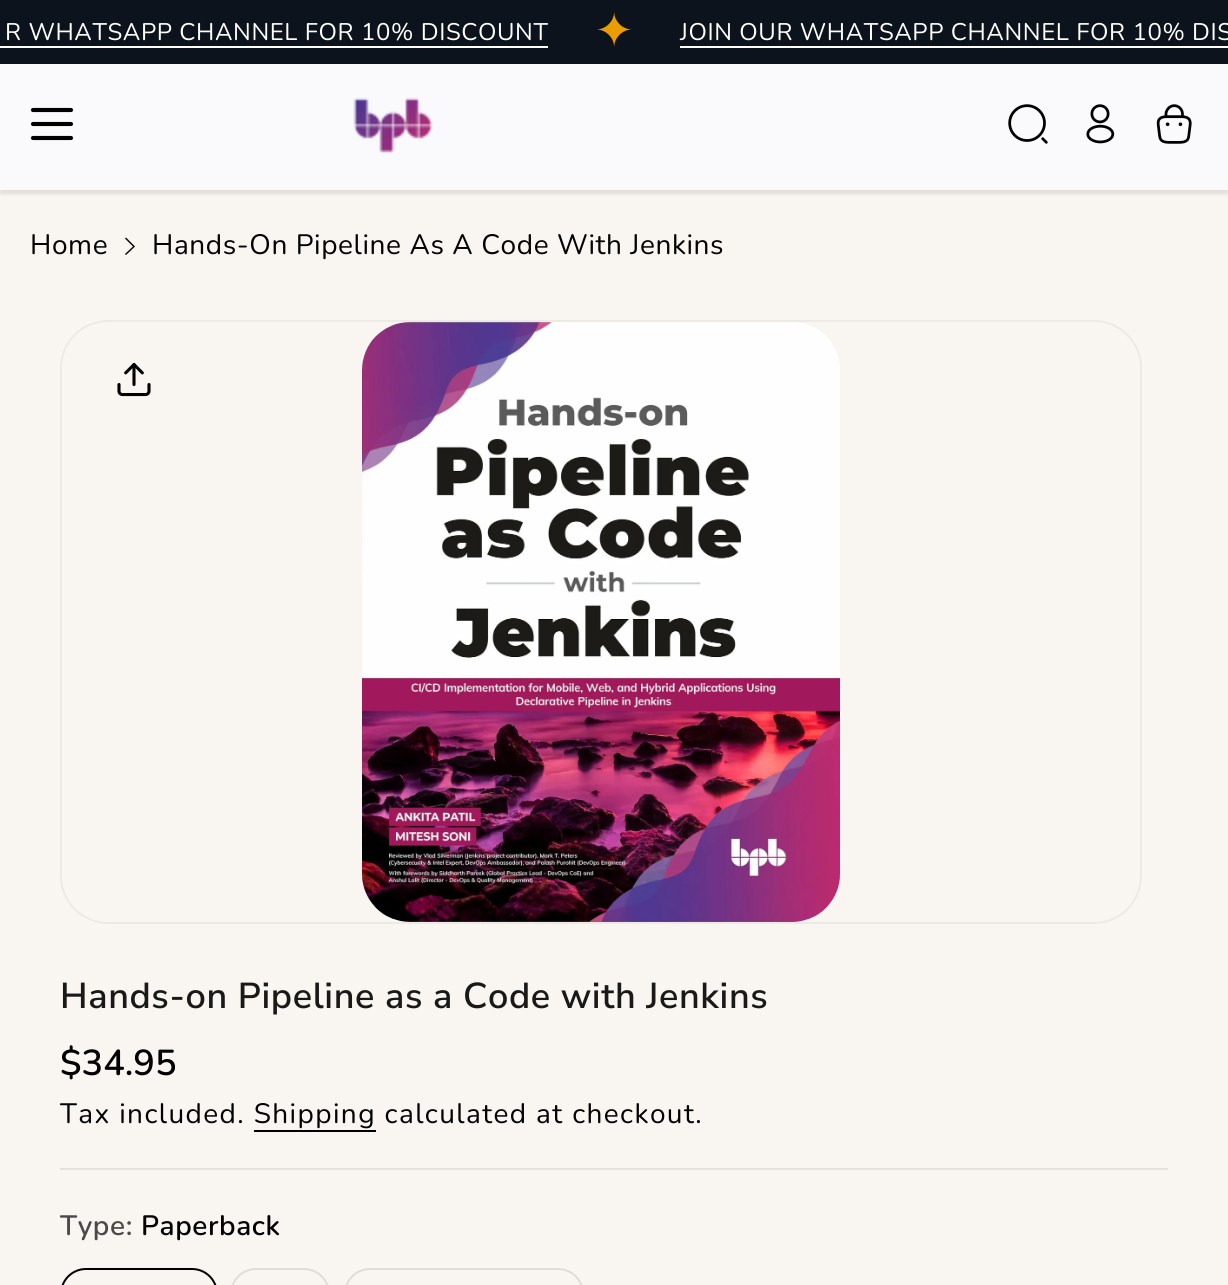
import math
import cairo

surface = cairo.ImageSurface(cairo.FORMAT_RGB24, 1228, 1285)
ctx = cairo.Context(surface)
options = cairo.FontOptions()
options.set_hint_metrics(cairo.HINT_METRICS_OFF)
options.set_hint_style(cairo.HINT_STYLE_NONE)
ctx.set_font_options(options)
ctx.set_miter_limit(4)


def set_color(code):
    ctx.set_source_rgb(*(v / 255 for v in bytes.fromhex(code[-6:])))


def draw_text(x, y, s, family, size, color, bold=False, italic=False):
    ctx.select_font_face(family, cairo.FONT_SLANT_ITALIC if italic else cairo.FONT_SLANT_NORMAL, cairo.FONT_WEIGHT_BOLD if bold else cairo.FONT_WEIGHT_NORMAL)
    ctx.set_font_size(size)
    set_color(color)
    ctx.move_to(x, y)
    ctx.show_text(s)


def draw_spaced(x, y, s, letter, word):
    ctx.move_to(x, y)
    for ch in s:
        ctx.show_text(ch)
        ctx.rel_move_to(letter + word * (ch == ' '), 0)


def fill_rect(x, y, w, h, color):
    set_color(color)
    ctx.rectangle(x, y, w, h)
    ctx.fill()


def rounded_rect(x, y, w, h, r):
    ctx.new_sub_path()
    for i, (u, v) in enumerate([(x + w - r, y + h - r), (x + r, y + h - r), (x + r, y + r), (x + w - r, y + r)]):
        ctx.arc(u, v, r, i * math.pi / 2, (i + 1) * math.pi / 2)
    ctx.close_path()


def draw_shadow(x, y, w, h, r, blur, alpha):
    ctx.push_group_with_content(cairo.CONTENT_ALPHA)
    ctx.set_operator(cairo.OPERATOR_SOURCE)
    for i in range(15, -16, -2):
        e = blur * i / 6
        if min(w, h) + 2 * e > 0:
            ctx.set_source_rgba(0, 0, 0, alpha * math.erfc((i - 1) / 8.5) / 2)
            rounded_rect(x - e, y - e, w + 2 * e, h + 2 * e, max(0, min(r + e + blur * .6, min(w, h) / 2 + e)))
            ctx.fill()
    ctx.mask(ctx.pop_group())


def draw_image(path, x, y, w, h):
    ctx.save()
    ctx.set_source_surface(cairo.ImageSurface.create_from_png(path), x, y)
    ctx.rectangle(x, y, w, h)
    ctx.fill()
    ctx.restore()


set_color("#f9f5f1")
ctx.paint()
fill_rect(0, 0, 1228, 64, "#0d131c")
ctx.select_font_face("Nunito")
ctx.set_font_size(24)
set_color("#ffffff")
draw_spaced(5, 40, "R WHATSAPP CHANNEL FOR 10% DISCOUNT", 0.6, 0)
fill_rect(0, 46, 548, 2, "#ffffff")
ctx.select_font_face("DejaVu Sans")
ctx.set_font_size(48)
set_color("#eb9d00")
draw_spaced(594, 47, "✦", 0.6, 0)
ctx.select_font_face("Nunito")
ctx.set_font_size(24)
set_color("#ffffff")
draw_spaced(680, 40, "JOIN OUR WHATSAPP CHANNEL FOR 10% DIS", 0.6, 0)
fill_rect(680, 46, 548, 2, "#ffffff")
set_color("#000000")
draw_shadow(0, 68, 1228, 126, 0, 2, 0.1)
fill_rect(0, 64, 1228, 126, "#fafafc")
ctx.new_path()
ctx.move_to(33, 138)
ctx.line_to(71, 138)
ctx.move_to(33, 124)
ctx.line_to(71, 124)
ctx.move_to(33, 110)
ctx.line_to(71, 110)
set_color("#000000")
ctx.set_line_width(4.1)
ctx.set_line_cap(cairo.LINE_CAP_ROUND)
ctx.set_line_join(cairo.LINE_JOIN_ROUND)
ctx.stroke()
draw_image("assets/img1.png", 353, 97, 80, 56)
draw_image("assets/img2.png", 1008, 104, 40, 40)
draw_image("assets/img3.png", 1086, 104, 29, 40)
draw_image("assets/img4.png", 1156, 104, 36, 40)
ctx.set_font_size(28)
draw_spaced(30, 254, "Home", 0.6, 0)
ctx.new_path()
ctx.move_to(125, 254)
ctx.line_to(126, 255)
ctx.line_to(135, 246.5)
ctx.line_to(126, 237.5)
ctx.line_to(125, 238.5)
ctx.line_to(133, 246.5)
ctx.close_path()
ctx.fill()
draw_spaced(152, 254, "Hands-On Pipeline As A Code With Jenkins", 0.6, 0)
rounded_rect(61, 321, 1080, 602, 47)
set_color("#ede9e5")
ctx.set_line_width(2)
ctx.set_line_cap(cairo.LINE_CAP_BUTT)
ctx.set_line_join(cairo.LINE_JOIN_MITER)
ctx.stroke()
draw_image("assets/img5.png", 362, 322, 478, 600)
draw_image("assets/img6.png", 117, 363, 34, 34)
ctx.select_font_face("Nunito Sans SemiBold")
ctx.set_font_size(36)
set_color("#191918")
draw_spaced(60, 1008, "Hands-on Pipeline as a Code with Jenkins", 0.6, 0)
fill_rect(60, 1168, 1108, 2, "#e5e1de")
draw_text(60, 1075, "$34.95", "Nunito SemiBold", 36, "#000000")
ctx.select_font_face("Nunito")
ctx.set_font_size(28)
draw_spaced(60, 1123, "Tax included. Shipping calculated at checkout.", 1.4, 0)
fill_rect(254, 1130, 122, 2, "#000000")
ctx.select_font_face("Nunito SemiBold")
set_color("#4b4a48")
draw_spaced(60, 1235, "Type:", 0.6, 0)
set_color("#000000")
draw_spaced(141, 1235, "Paperback", 0.6, 0)
rounded_rect(61, 1269, 156, 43, 25)
ctx.stroke()
rounded_rect(231, 1269, 98, 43, 25)
set_color("#e0ddd9")
ctx.stroke()
rounded_rect(345, 1269, 238, 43, 25)
ctx.stroke()
surface.write_to_png("output.png")
